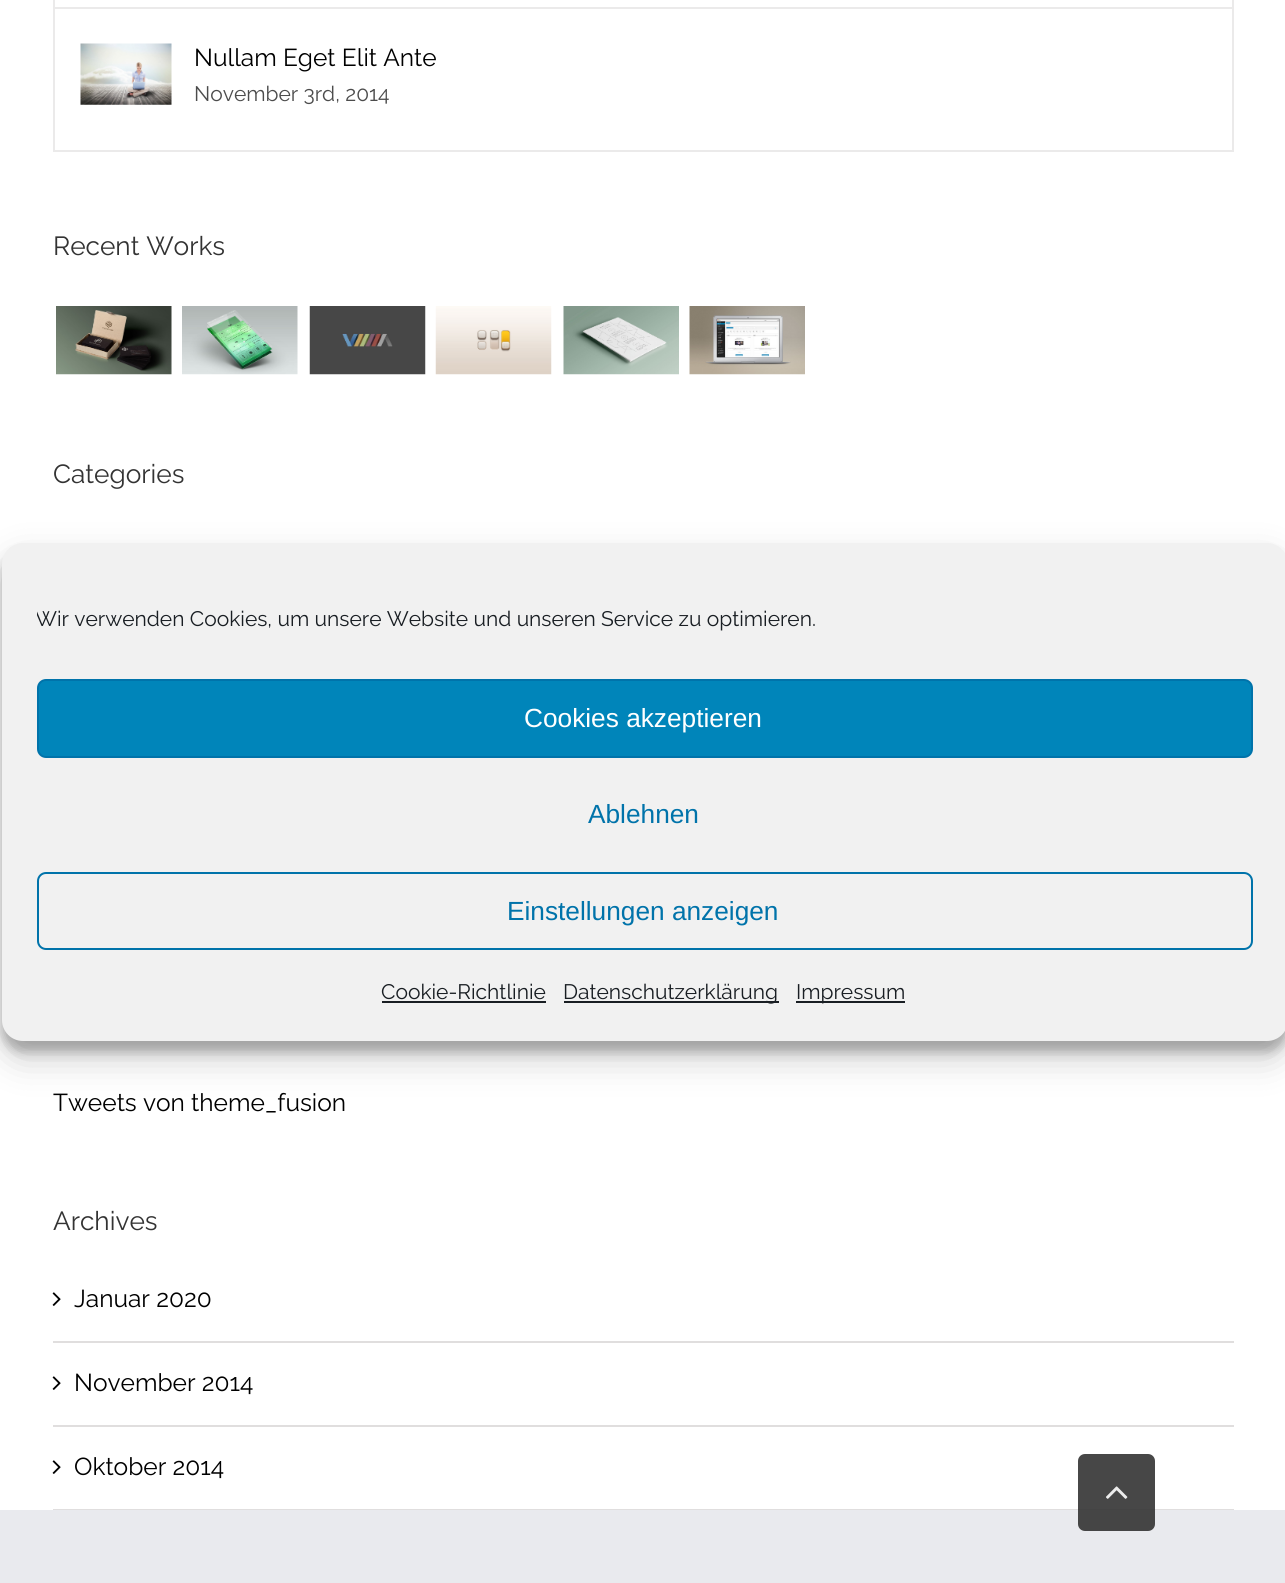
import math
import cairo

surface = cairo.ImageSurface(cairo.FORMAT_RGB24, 1285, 1583)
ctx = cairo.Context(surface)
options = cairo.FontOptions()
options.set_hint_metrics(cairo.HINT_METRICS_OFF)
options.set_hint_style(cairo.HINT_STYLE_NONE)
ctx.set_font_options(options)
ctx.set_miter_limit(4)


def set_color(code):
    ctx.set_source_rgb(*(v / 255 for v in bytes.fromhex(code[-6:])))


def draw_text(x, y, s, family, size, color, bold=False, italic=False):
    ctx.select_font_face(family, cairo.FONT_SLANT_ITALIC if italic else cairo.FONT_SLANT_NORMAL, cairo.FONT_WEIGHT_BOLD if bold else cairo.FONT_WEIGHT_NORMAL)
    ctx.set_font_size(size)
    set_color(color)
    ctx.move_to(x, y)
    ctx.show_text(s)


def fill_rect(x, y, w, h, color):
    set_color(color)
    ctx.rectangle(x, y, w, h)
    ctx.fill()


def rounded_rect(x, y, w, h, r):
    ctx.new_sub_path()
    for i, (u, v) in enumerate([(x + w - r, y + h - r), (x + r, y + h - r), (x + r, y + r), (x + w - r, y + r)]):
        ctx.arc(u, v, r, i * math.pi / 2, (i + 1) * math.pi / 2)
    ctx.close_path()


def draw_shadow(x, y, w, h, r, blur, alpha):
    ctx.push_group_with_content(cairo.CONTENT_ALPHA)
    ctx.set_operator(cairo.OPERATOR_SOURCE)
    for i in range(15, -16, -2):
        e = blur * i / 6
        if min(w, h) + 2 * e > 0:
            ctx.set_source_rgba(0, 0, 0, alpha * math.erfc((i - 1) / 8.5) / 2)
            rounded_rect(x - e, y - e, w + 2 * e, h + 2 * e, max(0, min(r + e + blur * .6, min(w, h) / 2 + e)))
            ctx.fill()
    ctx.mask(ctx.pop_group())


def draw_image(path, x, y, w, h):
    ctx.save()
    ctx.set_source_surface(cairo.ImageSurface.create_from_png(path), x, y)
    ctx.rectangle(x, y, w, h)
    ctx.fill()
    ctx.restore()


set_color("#ffffff")
ctx.paint()
ctx.rectangle(54, -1, 1179, 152)
set_color("#ebeaea")
ctx.stroke()
fill_rect(54, 7, 1178, 2, "#ebeaea")
draw_image("assets/img1.png", 80, 43, 92, 62)
draw_text(194, 66, "Nullam Eget Elit Ante", "Raleway", 24.5, "#000000")
draw_text(194, 101, "November 3rd, 2014", "Raleway", 21, "#4c4c4c")
draw_text(53, 255, "Recent Works", "Raleway", 26.25, "#333333")
draw_image("assets/img2.png", 56, 306, 116, 69)
draw_image("assets/img3.png", 182, 306, 116, 69)
draw_image("assets/img4.png", 309, 306, 117, 69)
draw_image("assets/img5.png", 435, 306, 117, 69)
draw_image("assets/img6.png", 563, 306, 116, 69)
draw_image("assets/img7.png", 689, 306, 116, 69)
draw_text(53, 483, "Categories", "Raleway", 26.25, "#333333")
draw_text(53, 1111, "Tweets von theme_fusion", "Raleway", 24.5, "#000000")
draw_text(53, 1230, "Archives", "Raleway", 26.25, "#333333")
fill_rect(53, 1341, 1181, 2, "#e0dede")
draw_image("assets/img8.png", 52, 1292, 9, 14)
draw_text(74, 1307, "Januar 2020", "Raleway", 24.5, "#000000")
fill_rect(53, 1425, 1181, 2, "#e0dede")
draw_image("assets/img8.png", 52, 1376, 9, 14)
draw_text(74, 1391, "November 2014", "Raleway", 24.5, "#000000")
fill_rect(53, 1509, 1181, 1, "#e0dede")
draw_image("assets/img8.png", 52, 1460, 9, 14)
draw_text(74, 1475, "Oktober 2014", "Raleway", 24.5, "#000000")
fill_rect(0, 1510, 1285, 73, "#e9eaee")
set_color("#000000")
draw_shadow(2, 553, 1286, 499, 21, 5, 0.23)
draw_shadow(2, 560, 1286, 499, 21, 17.5, 0.19)
set_color("#f1f1f1")
rounded_rect(2, 543, 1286, 498, 21)
ctx.fill()
ctx.save()
ctx.rectangle(37, 604, 1216, 40)
ctx.clip()
draw_text(35, 626, "Wir verwenden Cookies, um unsere Website und unseren Service zu optimieren.", "Raleway", 21, "#191e23")
ctx.restore()
set_color("#0085ba")
rounded_rect(38, 680, 1214, 77, 8)
ctx.fill_preserve()
set_color("#0073aa")
ctx.stroke()
draw_text(524, 727, "Cookies akzeptieren", "Liberation Sans", 26.25, "#ffffff")
draw_text(588, 823, "Ablehnen", "Liberation Sans", 26.25, "#0073aa")
rounded_rect(38, 873, 1214, 76, 8)
ctx.stroke()
draw_text(507, 920, "Einstellungen anzeigen", "Liberation Sans", 26.25, "#0073aa")
draw_text(381, 999, "Cookie-Richtlinie", "Raleway", 21, "#191e23")
fill_rect(382, 1001, 164, 2, "#191e23")
fill_rect(564, 1001, 215, 2, "#191e23")
draw_text(563, 999, "Datenschutzerklärung", "Raleway", 21, "#191e23")
fill_rect(796, 1001, 109, 2, "#191e23")
draw_text(796, 999, "Impressum", "Raleway", 21, "#191e23")
ctx.set_source_rgba(0.2, 0.2, 0.2, 0.9)
rounded_rect(1078, 1454, 77, 77, 7)
ctx.fill()
draw_image("assets/img9.png", 1106, 1486, 22, 13)
surface.write_to_png("output.png")
